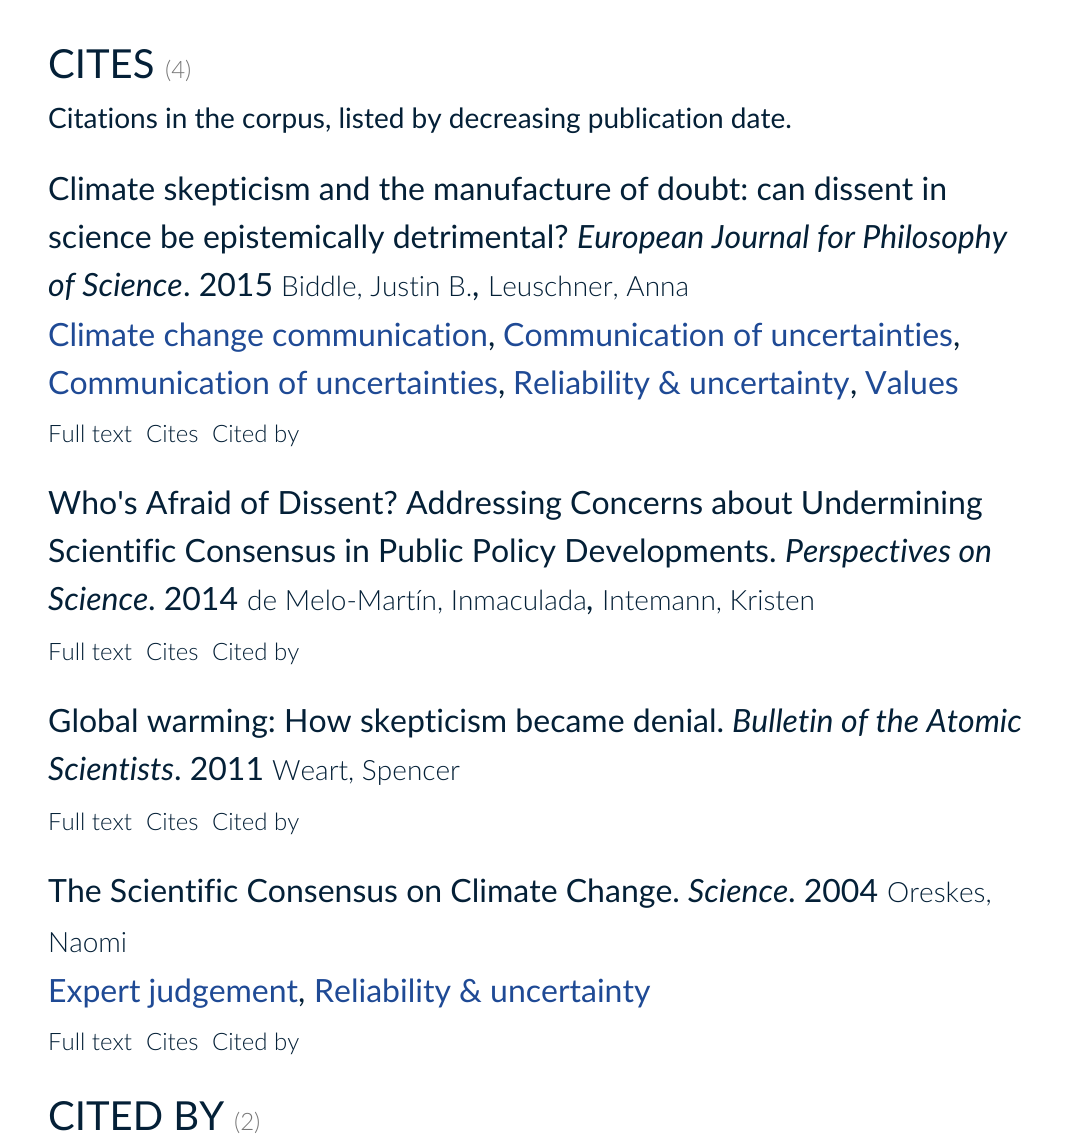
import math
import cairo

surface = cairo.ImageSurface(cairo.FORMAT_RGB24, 1079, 1140)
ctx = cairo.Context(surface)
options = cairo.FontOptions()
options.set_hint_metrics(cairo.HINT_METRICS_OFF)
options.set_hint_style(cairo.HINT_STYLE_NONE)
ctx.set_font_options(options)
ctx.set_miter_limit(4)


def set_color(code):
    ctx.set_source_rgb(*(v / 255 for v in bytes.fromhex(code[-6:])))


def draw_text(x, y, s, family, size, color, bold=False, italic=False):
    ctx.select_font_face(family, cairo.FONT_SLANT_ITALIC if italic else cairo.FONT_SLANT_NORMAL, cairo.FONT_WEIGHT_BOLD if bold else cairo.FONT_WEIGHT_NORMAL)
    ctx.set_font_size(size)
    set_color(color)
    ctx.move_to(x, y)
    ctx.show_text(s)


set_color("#ffffff")
ctx.paint()
draw_text(48, 78, "CITES", "Lato", 40, "#042037")
draw_text(165, 78, "(4)", "Lato Light", 24, "#777777")
draw_text(48, 128, "Citations in the corpus, listed by decreasing publication date.", "Lato", 28, "#042037")
draw_text(48, 200, "Climate skepticism and the manufacture of doubt: can dissent in", "Lato", 32, "#042037")
draw_text(48, 248, "science be epistemically detrimental?", "Lato", 32, "#042037")
draw_text(577, 248, "European Journal for Philosophy", "Lato", 32, "#042037", italic=True)
draw_text(48, 296, "of Science", "Lato", 32, "#042037", italic=True)
draw_text(183, 296, ". 2015", "Lato", 32, "#042037")
draw_text(281, 296, "Biddle, Justin B.", "Lato Light", 28, "#042037")
draw_text(472, 296, ",", "Lato", 32, "#042037")
draw_text(488, 296, "Leuschner, Anna", "Lato Light", 28, "#042037")
draw_text(48, 346, "Climate change communication", "Lato", 32, "#1f4a95")
draw_text(488, 346, ",", "Lato", 32, "#042037")
draw_text(503, 346, "Communication of uncertainties", "Lato", 32, "#1f4a95")
draw_text(953, 346, ",", "Lato", 32, "#042037")
draw_text(48, 394, "Communication of uncertainties", "Lato", 32, "#1f4a95")
draw_text(498, 394, ",", "Lato", 32, "#042037")
draw_text(513, 394, "Reliability & uncertainty", "Lato", 32, "#1f4a95")
draw_text(850, 394, ",", "Lato", 32, "#042037")
draw_text(865, 394, "Values", "Lato", 32, "#1f4a95")
draw_text(48, 442, "Full text", "Lato Light", 24, "#042037")
draw_text(146, 442, "Cites", "Lato Light", 24, "#042037")
draw_text(212, 442, "Cited by", "Lato Light", 24, "#042037")
draw_text(48, 514, "Who's Afraid of Dissent? Addressing Concerns about Undermining", "Lato", 32, "#042037")
draw_text(48, 562, "Scientific Consensus in Public Policy Developments.", "Lato", 32, "#042037")
draw_text(785, 562, "Perspectives on", "Lato", 32, "#042037", italic=True)
draw_text(48, 610, "Science", "Lato", 32, "#042037", italic=True)
draw_text(148, 610, ". 2014", "Lato", 32, "#042037")
draw_text(247, 610, "de Melo-Martín, Inmaculada", "Lato Light", 28, "#042037")
draw_text(586, 610, ",", "Lato", 32, "#042037")
draw_text(602, 610, "Intemann, Kristen", "Lato Light", 28, "#042037")
draw_text(48, 660, "Full text", "Lato Light", 24, "#042037")
draw_text(146, 660, "Cites", "Lato Light", 24, "#042037")
draw_text(212, 660, "Cited by", "Lato Light", 24, "#042037")
draw_text(48, 732, "Global warming: How skepticism became denial.", "Lato", 32, "#042037")
draw_text(732, 732, "Bulletin of the Atomic", "Lato", 32, "#042037", italic=True)
draw_text(48, 780, "Scientists", "Lato", 32, "#042037", italic=True)
draw_text(174, 780, ". 2011", "Lato", 32, "#042037")
draw_text(272, 780, "Weart, Spencer", "Lato Light", 28, "#042037")
draw_text(48, 830, "Full text", "Lato Light", 24, "#042037")
draw_text(146, 830, "Cites", "Lato Light", 24, "#042037")
draw_text(212, 830, "Cited by", "Lato Light", 24, "#042037")
draw_text(48, 902, "The Scientific Consensus on Climate Change.", "Lato", 32, "#042037")
draw_text(688, 902, "Science", "Lato", 32, "#042037", italic=True)
draw_text(788, 902, ". 2004", "Lato", 32, "#042037")
draw_text(887, 902, "Oreskes,", "Lato Light", 28, "#042037")
draw_text(48, 952, "Naomi", "Lato Light", 28, "#042037")
draw_text(48, 1002, "Expert judgement", "Lato", 32, "#1f4a95")
draw_text(298, 1002, ",", "Lato", 32, "#042037")
draw_text(314, 1002, "Reliability & uncertainty", "Lato", 32, "#1f4a95")
draw_text(48, 1050, "Full text", "Lato Light", 24, "#042037")
draw_text(146, 1050, "Cites", "Lato Light", 24, "#042037")
draw_text(212, 1050, "Cited by", "Lato Light", 24, "#042037")
draw_text(48, 1130, "CITED BY", "Lato", 40, "#042037")
draw_text(234, 1130, "(2)", "Lato Light", 24, "#777777")
surface.write_to_png("output.png")
